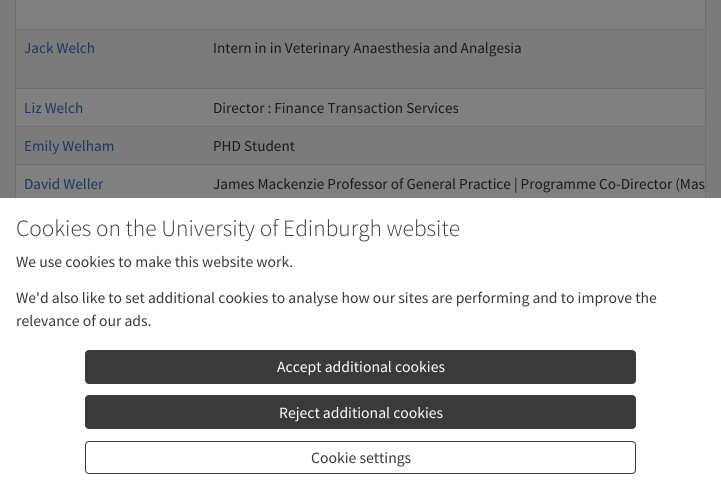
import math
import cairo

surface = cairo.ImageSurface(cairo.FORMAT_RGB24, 721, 481)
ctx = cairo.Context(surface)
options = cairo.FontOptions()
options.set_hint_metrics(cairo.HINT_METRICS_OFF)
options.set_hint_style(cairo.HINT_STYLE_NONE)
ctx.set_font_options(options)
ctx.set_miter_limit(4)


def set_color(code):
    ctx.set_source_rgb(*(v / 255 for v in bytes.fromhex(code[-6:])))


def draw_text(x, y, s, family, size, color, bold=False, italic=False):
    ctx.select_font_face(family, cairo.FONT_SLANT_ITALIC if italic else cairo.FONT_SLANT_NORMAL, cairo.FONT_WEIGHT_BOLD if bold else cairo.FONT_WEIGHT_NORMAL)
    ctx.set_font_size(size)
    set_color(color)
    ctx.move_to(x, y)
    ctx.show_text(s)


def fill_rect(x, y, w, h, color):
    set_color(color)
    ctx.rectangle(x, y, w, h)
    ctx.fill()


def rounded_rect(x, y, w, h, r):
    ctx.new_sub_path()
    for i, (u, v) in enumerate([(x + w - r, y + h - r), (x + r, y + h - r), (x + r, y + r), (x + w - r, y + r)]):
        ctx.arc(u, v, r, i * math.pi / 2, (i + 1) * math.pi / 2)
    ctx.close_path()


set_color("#7b7b7b")
ctx.paint()
ctx.rectangle(15.5, -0.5, 690, 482)
set_color("#6f6f6f")
ctx.set_line_width(1)
ctx.stroke()
fill_rect(16, 0, 689, 29, "#808080")
draw_text(24, 53, "Jack Welch", "Source Sans Pro", 15.2, "#1a3760")
fill_rect(16, 29, 689, 1, "#6f6f6f")
draw_text(213, 53, "Intern in in Veterinary Anaesthesia and Analgesia", "Source Sans Pro", 15.2, "#1a1a1a")
fill_rect(16, 89, 689, 37, "#808080")
draw_text(24, 113, "Liz Welch", "Source Sans Pro", 15.2, "#1a3760")
fill_rect(16, 88, 689, 1, "#6f6f6f")
draw_text(213, 113, "Director : Finance Transaction Services", "Source Sans Pro", 15.2, "#1a1a1a")
draw_text(24, 151, "Emily Welham", "Source Sans Pro", 15.2, "#1a3760")
fill_rect(16, 126, 689, 1, "#6f6f6f")
draw_text(213, 151, "PHD Student", "Source Sans Pro", 15.2, "#1a1a1a")
fill_rect(16, 165, 689, 33, "#808080")
draw_text(24, 189, "David Weller", "Source Sans Pro", 15.2, "#1a3760")
fill_rect(16, 164, 689, 1, "#6f6f6f")
draw_text(213, 189, "James Mackenzie Professor of General Practice | Programme Co-Director (Mas", "Source Sans Pro", 15.2, "#1a1a1a")
fill_rect(0, 198, 721, 283, "#ffffff")
draw_text(16, 236, "Cookies on the University of Edinburgh website", "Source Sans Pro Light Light", 23.4, "#3a3a3a")
draw_text(16, 267, "We use cookies to make this website work.", "Source Sans Pro", 15.65, "#3a3a3a")
draw_text(16, 303, "We'd also like to set additional cookies to analyse how our sites are performing and to improve the", "Source Sans Pro", 15.65, "#3a3a3a")
draw_text(16, 326, "relevance of our ads.", "Source Sans Pro", 15.65, "#3a3a3a")
rounded_rect(85.5, 350.5, 550, 33, 3.5)
ctx.fill_preserve()
ctx.stroke()
draw_text(277, 372, "Accept additional cookies", "Source Sans Pro", 15.65, "#ffffff")
set_color("#3a3a3a")
rounded_rect(85.5, 395.5, 550, 33, 3.5)
ctx.fill_preserve()
ctx.stroke()
draw_text(279, 418, "Reject additional cookies", "Source Sans Pro", 15.65, "#ffffff")
rounded_rect(85.5, 441.5, 550, 32, 3.5)
set_color("#3a3a3a")
ctx.stroke()
draw_text(311, 463, "Cookie settings", "Source Sans Pro", 15.65, "#3a3a3a")
surface.write_to_png("output.png")
